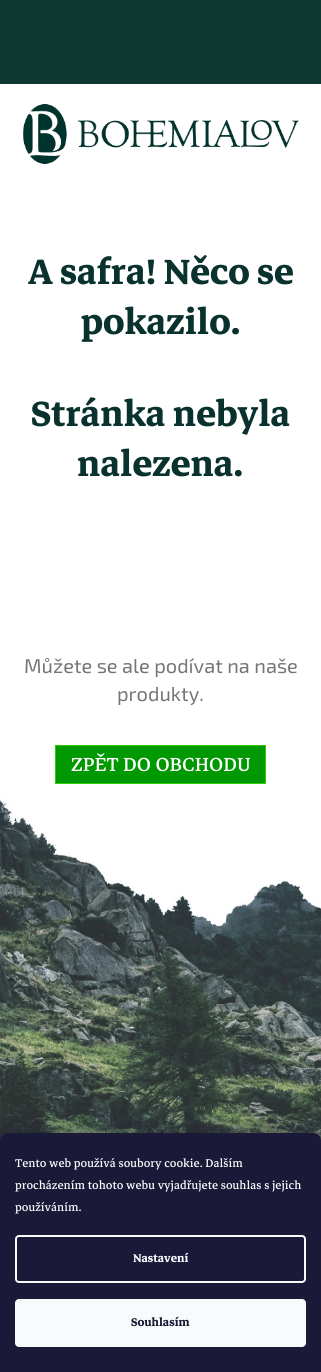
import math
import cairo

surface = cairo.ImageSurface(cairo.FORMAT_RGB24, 321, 1372)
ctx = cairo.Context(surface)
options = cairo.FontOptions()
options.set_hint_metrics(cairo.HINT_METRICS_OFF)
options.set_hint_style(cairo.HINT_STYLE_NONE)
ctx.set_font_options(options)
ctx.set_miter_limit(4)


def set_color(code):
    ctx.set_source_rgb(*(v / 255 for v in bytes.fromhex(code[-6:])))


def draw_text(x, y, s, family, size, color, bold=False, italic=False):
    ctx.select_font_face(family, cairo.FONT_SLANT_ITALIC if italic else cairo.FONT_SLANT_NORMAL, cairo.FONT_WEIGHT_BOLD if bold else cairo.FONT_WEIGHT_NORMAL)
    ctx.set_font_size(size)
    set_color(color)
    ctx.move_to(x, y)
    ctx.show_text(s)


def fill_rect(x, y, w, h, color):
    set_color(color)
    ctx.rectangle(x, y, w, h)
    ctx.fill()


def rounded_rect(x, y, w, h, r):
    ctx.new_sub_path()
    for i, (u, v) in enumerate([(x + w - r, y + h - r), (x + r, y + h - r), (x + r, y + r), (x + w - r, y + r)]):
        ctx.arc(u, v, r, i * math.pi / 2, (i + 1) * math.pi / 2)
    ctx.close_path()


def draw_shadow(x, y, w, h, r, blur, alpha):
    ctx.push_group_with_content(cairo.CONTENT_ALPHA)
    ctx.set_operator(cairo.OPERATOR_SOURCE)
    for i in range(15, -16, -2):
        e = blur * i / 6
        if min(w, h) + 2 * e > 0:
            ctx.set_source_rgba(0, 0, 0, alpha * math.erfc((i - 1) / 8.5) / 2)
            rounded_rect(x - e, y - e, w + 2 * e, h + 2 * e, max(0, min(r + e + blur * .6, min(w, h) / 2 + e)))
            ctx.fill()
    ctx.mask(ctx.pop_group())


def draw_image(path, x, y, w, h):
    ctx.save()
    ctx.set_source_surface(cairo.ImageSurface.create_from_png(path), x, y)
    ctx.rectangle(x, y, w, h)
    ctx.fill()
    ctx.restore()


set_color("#ffffff")
ctx.paint()
fill_rect(0, 0, 321, 84, "#0f3833")
draw_image("assets/img1.png", 23, 104, 276, 60)
draw_text(28, 284, "A safra! Něco se", "Markazi Text", 50, "#09322e", bold=True)
draw_text(81, 334, "pokazilo.", "Markazi Text", 50, "#09322e", bold=True)
draw_text(31, 426, "Stránka nebyla", "Markazi Text", 50, "#09322e", bold=True)
draw_text(77, 476, "nalezena.", "Markazi Text", 50, "#09322e", bold=True)
draw_text(24, 673, "Můžete se ale podívat na naše", "Exo 2", 20, "#767676")
draw_text(117, 701, "produkty.", "Exo 2", 20, "#767676")
set_color("#009901")
ctx.rectangle(55.5, 745.5, 210, 38)
ctx.fill_preserve()
set_color("#32cb00")
ctx.set_line_width(1)
ctx.stroke()
draw_text(71, 771, "ZPĚT DO OBCHODU", "Markazi Text", 27, "#ffffff")
draw_image("assets/img2.png", 0, 799, 321, 342)
set_color("#1b1939")
draw_shadow(0, 1133, 321, 239, 8, 15, 0.5)
set_color("#1a1937")
ctx.new_path()
ctx.move_to(8, 1133)
ctx.line_to(313, 1133)
ctx.curve_to(317.5, 1133, 321, 1136.5, 321, 1141)
ctx.line_to(321, 1372)
ctx.line_to(0, 1372)
ctx.line_to(0, 1141)
ctx.curve_to(0, 1136.5, 3.5, 1133, 8, 1133)
ctx.close_path()
ctx.fill()
draw_text(15, 1167, "Tento web používá soubory cookie. Dalším", "Markazi Text", 16, "#f8fafb")
draw_text(15, 1189, "procházením tohoto webu vyjadřujete souhlas s jejich", "Markazi Text", 16, "#f8fafb")
draw_text(15, 1211, "používáním.", "Markazi Text", 16, "#f8fafb")
rounded_rect(16, 1236, 289, 46, 3)
ctx.set_line_width(2)
ctx.stroke()
draw_text(133, 1262, "Nastavení", "Markazi Text", 16, "#f8fafb", bold=True)
rounded_rect(15, 1299, 291, 48, 4)
ctx.fill()
draw_text(131, 1326, "Souhlasím", "Markazi Text", 16, "#1a1937", bold=True)
surface.write_to_png("output.png")
